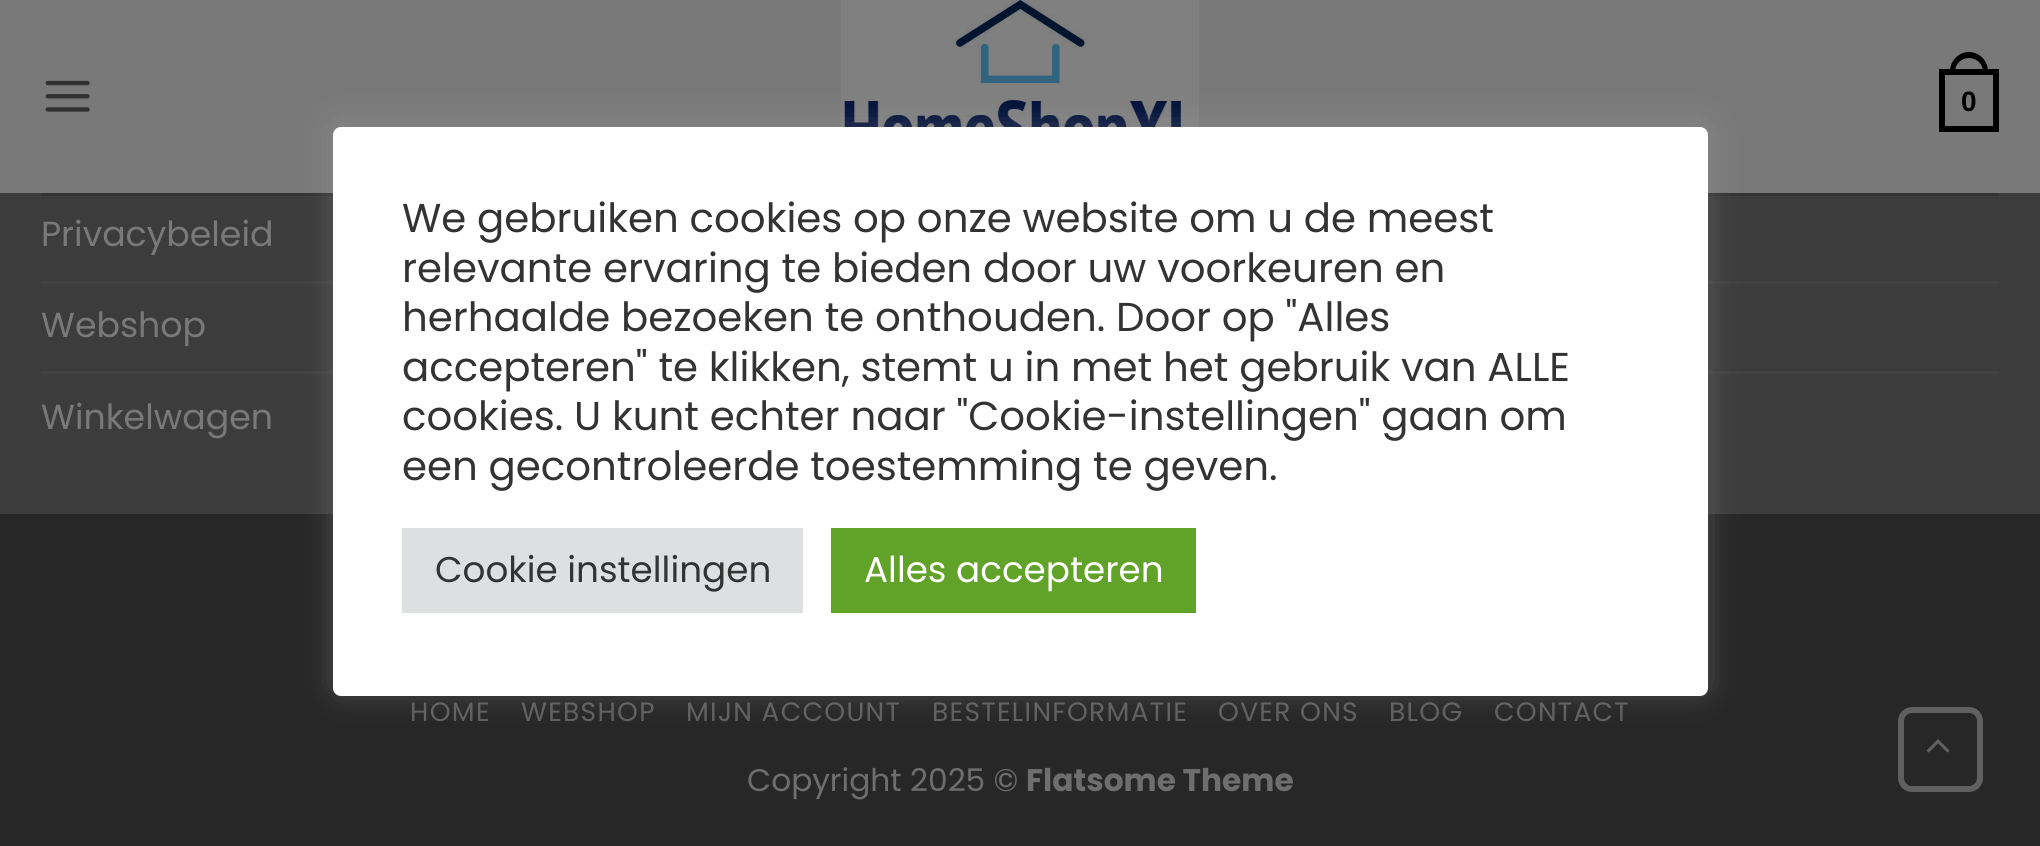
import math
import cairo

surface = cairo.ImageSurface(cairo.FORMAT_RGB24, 2040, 846)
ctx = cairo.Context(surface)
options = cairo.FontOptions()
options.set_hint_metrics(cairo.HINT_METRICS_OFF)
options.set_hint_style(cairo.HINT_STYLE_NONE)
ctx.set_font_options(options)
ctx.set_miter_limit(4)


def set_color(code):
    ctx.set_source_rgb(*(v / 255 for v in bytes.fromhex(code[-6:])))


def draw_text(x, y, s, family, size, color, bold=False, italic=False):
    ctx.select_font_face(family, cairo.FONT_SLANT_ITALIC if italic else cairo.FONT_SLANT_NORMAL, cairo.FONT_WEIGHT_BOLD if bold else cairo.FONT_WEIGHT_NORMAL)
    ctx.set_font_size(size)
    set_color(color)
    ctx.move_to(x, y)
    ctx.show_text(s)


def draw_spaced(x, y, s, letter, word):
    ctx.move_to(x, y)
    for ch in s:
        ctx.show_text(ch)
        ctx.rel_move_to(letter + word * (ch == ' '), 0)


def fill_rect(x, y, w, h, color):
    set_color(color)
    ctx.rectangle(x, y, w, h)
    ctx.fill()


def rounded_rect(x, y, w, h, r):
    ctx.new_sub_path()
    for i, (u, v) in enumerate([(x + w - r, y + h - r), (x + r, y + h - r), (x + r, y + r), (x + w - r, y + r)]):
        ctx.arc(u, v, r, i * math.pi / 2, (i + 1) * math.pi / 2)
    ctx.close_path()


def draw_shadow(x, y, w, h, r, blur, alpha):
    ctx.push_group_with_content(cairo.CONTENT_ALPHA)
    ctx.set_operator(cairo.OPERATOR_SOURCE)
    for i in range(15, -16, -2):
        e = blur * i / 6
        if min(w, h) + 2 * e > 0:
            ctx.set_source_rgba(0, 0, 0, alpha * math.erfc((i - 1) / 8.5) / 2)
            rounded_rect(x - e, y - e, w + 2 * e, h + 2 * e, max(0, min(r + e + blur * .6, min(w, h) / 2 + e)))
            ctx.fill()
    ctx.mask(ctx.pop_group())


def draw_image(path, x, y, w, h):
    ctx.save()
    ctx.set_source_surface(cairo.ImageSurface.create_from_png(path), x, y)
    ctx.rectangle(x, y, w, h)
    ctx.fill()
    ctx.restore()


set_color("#3c3c3c")
ctx.paint()
fill_rect(41, 6, 1958, 3, "#414141")
fill_rect(41, 96, 1958, 3, "#414141")
fill_rect(41, 190, 1958, 3, "#414141")
ctx.set_source_rgba(0.502, 0.502, 0.502, 0.9)
ctx.rectangle(0, 0, 2040, 193)
ctx.fill()
draw_image("assets/img1.png", 45, 80, 45, 32)
draw_image("assets/img2.png", 841, 0, 358, 127)
ctx.rectangle(1942, 72, 54, 57)
set_color("#000000")
ctx.set_line_width(6)
ctx.stroke()
ctx.set_fill_rule(cairo.FILL_RULE_EVEN_ODD)
ctx.new_path()
ctx.move_to(1969, 52)
ctx.curve_to(1979.5, 52, 1988, 61, 1988, 71.5)
ctx.line_to(1988, 74)
ctx.line_to(1950, 74)
ctx.line_to(1950, 71.5)
ctx.curve_to(1950, 61, 1958.5, 52, 1969, 52)
ctx.close_path()
ctx.move_to(1969, 58)
ctx.curve_to(1976.5, 58, 1983, 64, 1983, 71.5)
ctx.line_to(1983, 74)
ctx.line_to(1955, 74)
ctx.line_to(1955, 71.5)
ctx.curve_to(1955, 64, 1961.5, 58, 1969, 58)
ctx.close_path()
ctx.fill()
draw_text(1961, 111, "0", "Liberation Sans", 28, "#000000", bold=True)
fill_rect(41, 193, 1958, 3, "#343434")
draw_text(41, 246, "Privacybeleid", "Poppins", 34.75, "#797979")
fill_rect(41, 281, 1958, 3, "#414141")
draw_text(41, 337, "Webshop", "Poppins", 34.75, "#797979")
fill_rect(41, 371, 1958, 3, "#414141")
draw_text(41, 429, "Winkelwagen", "Poppins", 34.75, "#797979")
fill_rect(0, 514, 2040, 332, "#272727")
ctx.set_font_size(26.5)
set_color("#606060")
draw_spaced(410, 721, "HOME", 1.3, 0)
draw_spaced(521, 721, "WEBSHOP", 1.3, 0)
draw_spaced(686, 721, "MIJN ACCOUNT", 1.3, 0)
draw_spaced(932, 721, "BESTELINFORMATIE", 1.3, 0)
draw_spaced(1218, 721, "OVER ONS", 1.3, 0)
draw_spaced(1389, 721, "BLOG", 1.3, 0)
draw_spaced(1494, 721, "CONTACT", 1.3, 0)
draw_text(747, 791, "Copyright 2025 ©", "Poppins", 31.25, "#6e6e6e")
draw_text(1026, 791, "Flatsome Theme", "Poppins", 31.25, "#6e6e6e", bold=True)
rounded_rect(1901, 710, 79, 79, 11)
set_color("#606060")
ctx.stroke()
draw_image("assets/img3.png", 1926, 739, 24, 14)
set_color("#acabab")
draw_shadow(333, 124, 1375, 569, 8, 14, 0.3)
set_color("#ffffff")
rounded_rect(333, 127, 1375, 569, 8)
ctx.fill()
draw_text(402, 232, "We gebruiken cookies op onze website om u de meest", "Poppins", 40.3, "#333333")
draw_text(402, 282, "relevante ervaring te bieden door uw voorkeuren en", "Poppins", 40.3, "#333333")
draw_text(402, 331, "herhaalde bezoeken te onthouden. Door op \"Alles", "Poppins", 40.3, "#333333")
draw_text(402, 381, "accepteren\" te klikken, stemt u in met het gebruik van ALLE", "Poppins", 40.3, "#333333")
draw_text(402, 430, "cookies. U kunt echter naar \"Cookie-instellingen\" gaan om", "Poppins", 40.3, "#333333")
draw_text(402, 480, "een gecontroleerde toestemming te geven.", "Poppins", 40.3, "#333333")
fill_rect(402, 528, 401, 85, "#dedfe0")
draw_text(435, 582, "Cookie instellingen", "Poppins", 35.75, "#333333")
fill_rect(831, 528, 365, 85, "#61a229")
draw_text(864, 582, "Alles accepteren", "Poppins", 35.75, "#ffffff")
surface.write_to_png("output.png")
